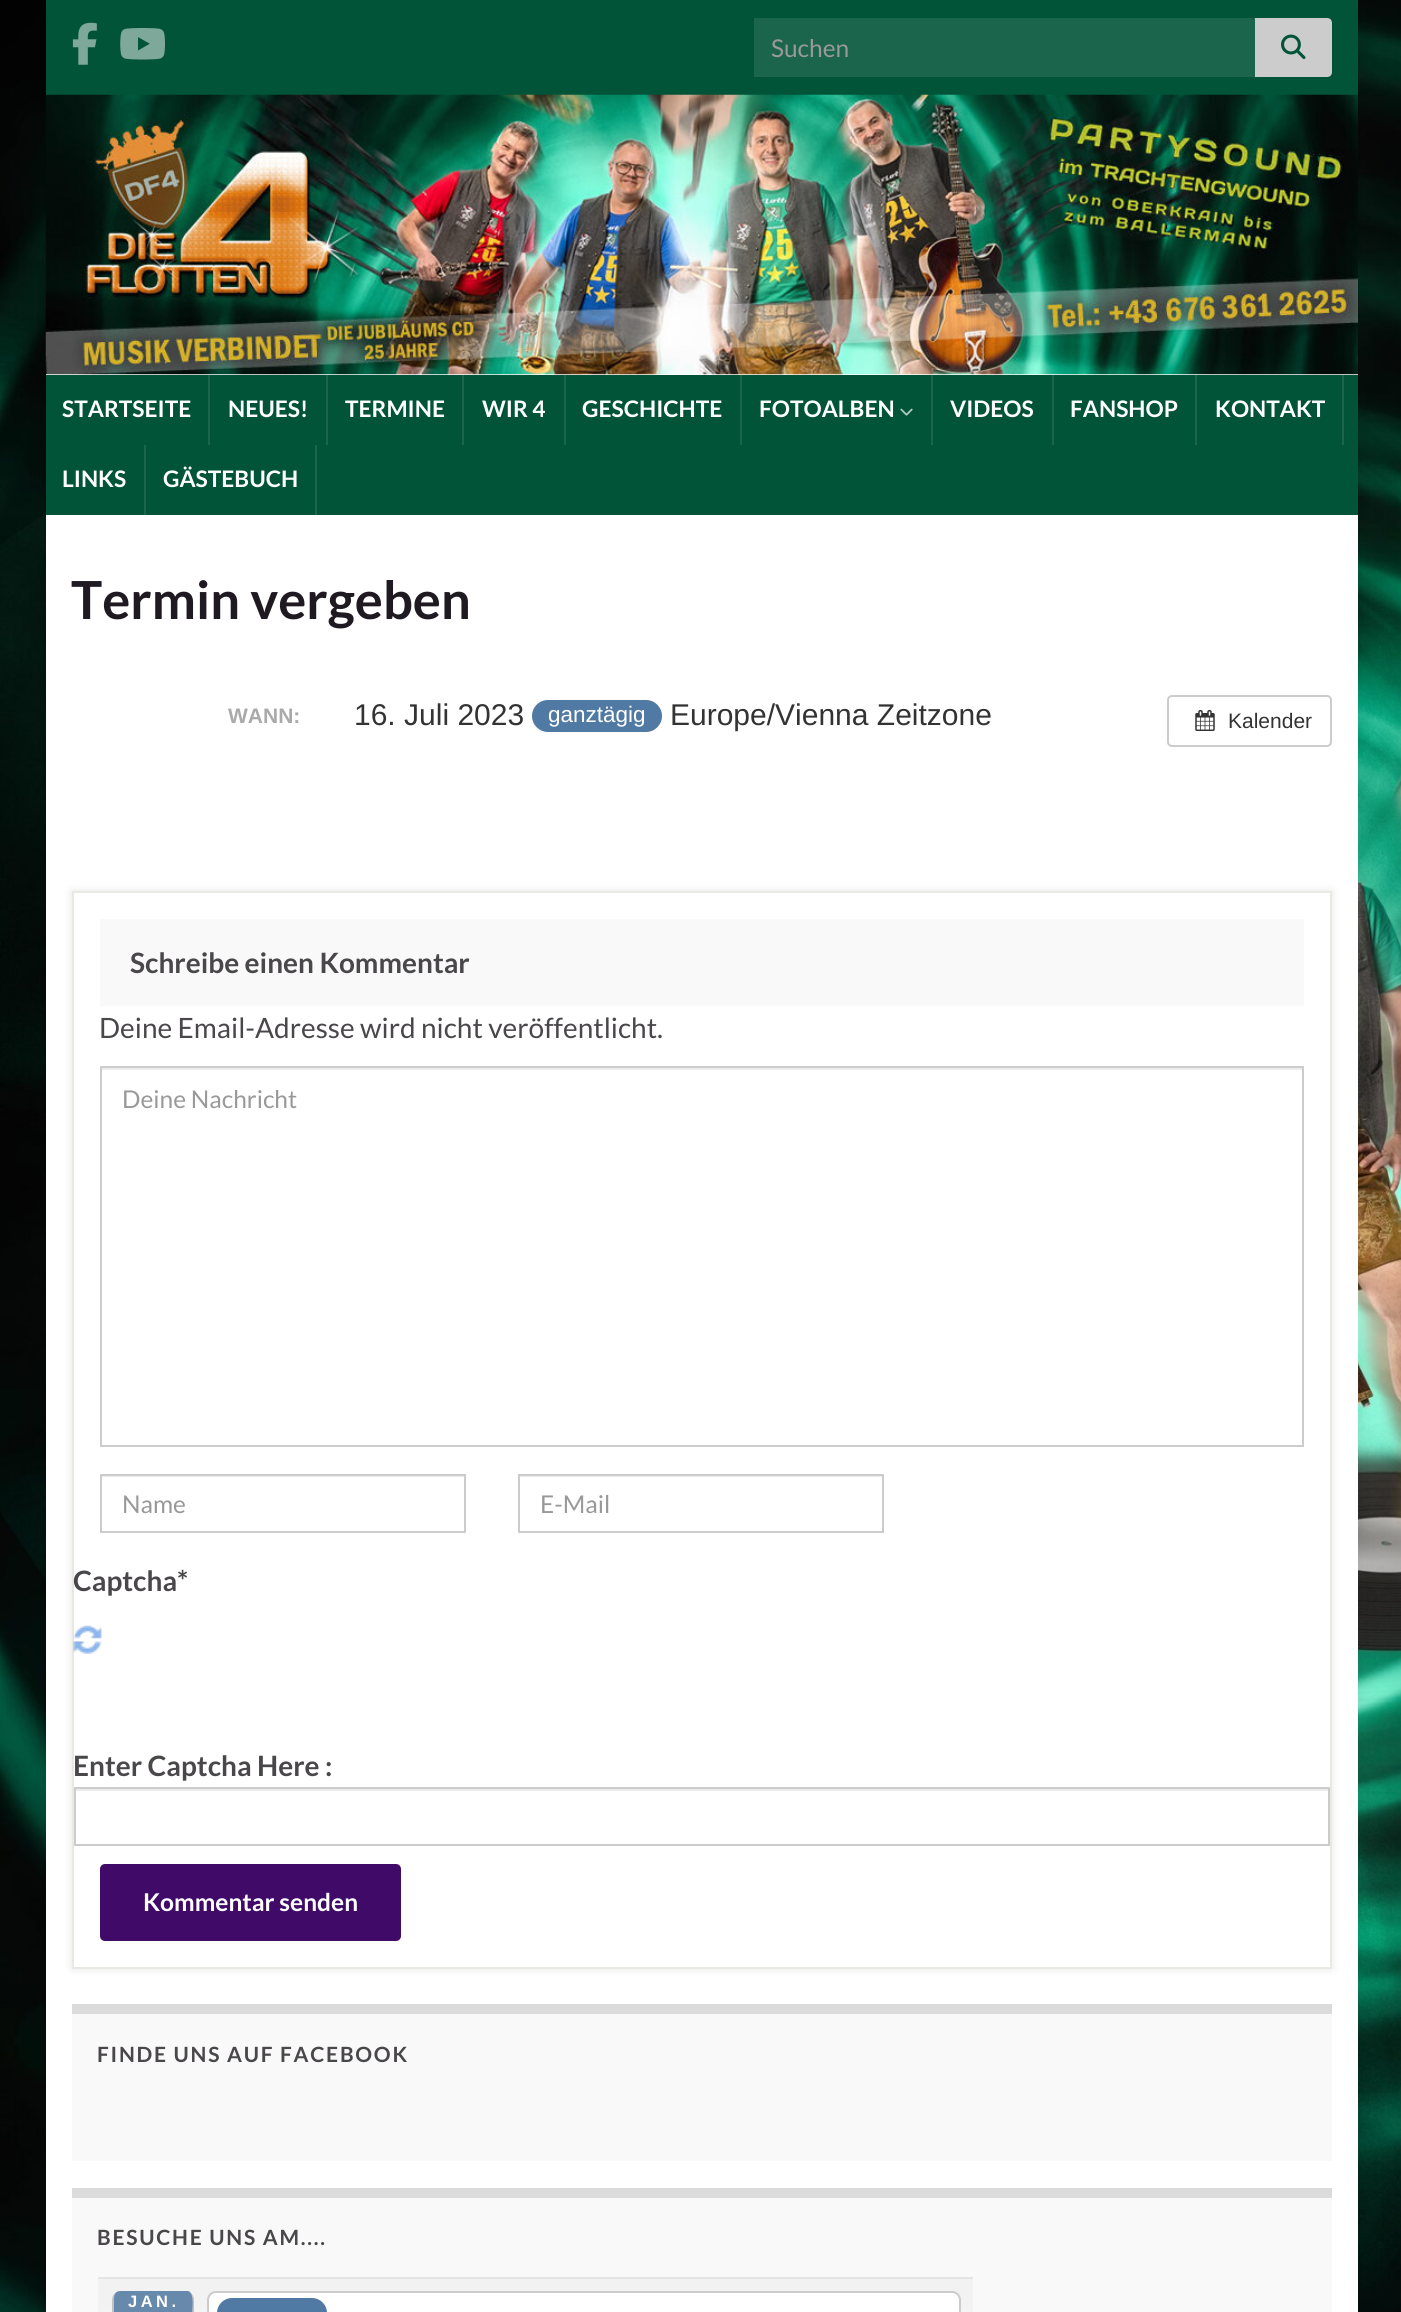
import math
import cairo

surface = cairo.ImageSurface(cairo.FORMAT_RGB24, 1401, 2312)
ctx = cairo.Context(surface)
options = cairo.FontOptions()
options.set_hint_metrics(cairo.HINT_METRICS_OFF)
options.set_hint_style(cairo.HINT_STYLE_NONE)
ctx.set_font_options(options)
ctx.set_miter_limit(4)


def set_color(code):
    ctx.set_source_rgb(*(v / 255 for v in bytes.fromhex(code[-6:])))


def draw_text(x, y, s, family, size, color, bold=False, italic=False):
    ctx.select_font_face(family, cairo.FONT_SLANT_ITALIC if italic else cairo.FONT_SLANT_NORMAL, cairo.FONT_WEIGHT_BOLD if bold else cairo.FONT_WEIGHT_NORMAL)
    ctx.set_font_size(size)
    set_color(color)
    ctx.move_to(x, y)
    ctx.show_text(s)


def draw_spaced(x, y, s, letter, word):
    ctx.move_to(x, y)
    for ch in s:
        ctx.show_text(ch)
        ctx.rel_move_to(letter + word * (ch == ' '), 0)


def fill_rect(x, y, w, h, color):
    set_color(color)
    ctx.rectangle(x, y, w, h)
    ctx.fill()


def rounded_rect(x, y, w, h, r):
    ctx.new_sub_path()
    for i, (u, v) in enumerate([(x + w - r, y + h - r), (x + r, y + h - r), (x + r, y + r), (x + w - r, y + r)]):
        ctx.arc(u, v, r, i * math.pi / 2, (i + 1) * math.pi / 2)
    ctx.close_path()


def draw_shadow(x, y, w, h, r, blur, alpha):
    ctx.push_group_with_content(cairo.CONTENT_ALPHA)
    ctx.set_operator(cairo.OPERATOR_SOURCE)
    for i in range(15, -16, -2):
        e = blur * i / 6
        if min(w, h) + 2 * e > 0:
            ctx.set_source_rgba(0, 0, 0, alpha * math.erfc((i - 1) / 8.5) / 2)
            rounded_rect(x - e, y - e, w + 2 * e, h + 2 * e, max(0, min(r + e + blur * .6, min(w, h) / 2 + e)))
            ctx.fill()
    ctx.mask(ctx.pop_group())


def draw_image(path, x, y, w, h):
    ctx.save()
    ctx.set_source_surface(cairo.ImageSurface.create_from_png(path), x, y)
    ctx.rectangle(x, y, w, h)
    ctx.fill()
    ctx.restore()


set_color("#ffffff")
ctx.paint()
draw_image("assets/img1.png", 0, 0, 1401, 2312)
set_color("#000000")
draw_shadow(46, 0, 1312, 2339, 0, 9, 0.1)
fill_rect(46, 0, 1312, 95, "#015438")
draw_image("assets/img2.png", 72, 22, 25, 43)
draw_image("assets/img3.png", 120, 28, 45, 32)
fill_rect(754, 18, 501, 59, "#1a654c")
draw_text(771, 57, "Suchen", "Lato", 24.5, "#999999")
set_color("#cccccc")
ctx.new_path()
ctx.move_to(1255, 18)
ctx.line_to(1327, 18)
ctx.curve_to(1330, 18, 1332, 20, 1332, 23)
ctx.line_to(1332, 72)
ctx.curve_to(1332, 75, 1330, 77, 1327, 77)
ctx.line_to(1255, 77)
ctx.close_path()
ctx.fill()
draw_image("assets/img4.png", 1281, 34, 25, 25)
fill_rect(46, 374, 1312, 1, "#ffffff")
draw_image("assets/img5.png", 45, 94, 1313, 281)
fill_rect(46, 375, 1312, 140, "#015438")
fill_rect(208, 375, 2, 70, "#1a654c")
draw_text(62, 417, "STARTSEITE", "Lato", 22.75, "#ffffff", bold=True)
fill_rect(326, 375, 2, 70, "#1a654c")
draw_text(228, 417, "NEUES!", "Lato", 22.75, "#ffffff", bold=True)
fill_rect(462, 375, 2, 70, "#1a654c")
draw_text(345, 417, "TERMINE", "Lato", 22.75, "#ffffff", bold=True)
fill_rect(564, 375, 2, 70, "#1a654c")
draw_text(482, 417, "WIR 4", "Lato", 22.75, "#ffffff", bold=True)
fill_rect(740, 375, 2, 70, "#1a654c")
draw_text(582, 417, "GESCHICHTE", "Lato", 22.75, "#ffffff", bold=True)
fill_rect(931, 375, 2, 70, "#1a654c")
draw_text(759, 417, "FOTOALBEN", "Lato", 22.75, "#ffffff", bold=True)
draw_image("assets/img6.png", 900, 408, 13, 8)
fill_rect(1052, 375, 2, 70, "#1a654c")
draw_text(950, 417, "VIDEOS", "Lato", 22.75, "#ffffff", bold=True)
fill_rect(1195, 375, 2, 70, "#1a654c")
draw_text(1070, 417, "FANSHOP", "Lato", 22.75, "#ffffff", bold=True)
fill_rect(1342, 375, 2, 70, "#1a654c")
draw_text(1215, 417, "KONTAKT", "Lato", 22.75, "#ffffff", bold=True)
fill_rect(144, 445, 2, 70, "#1a654c")
draw_text(62, 487, "LINKS", "Lato", 22.75, "#ffffff", bold=True)
fill_rect(315, 445, 2, 70, "#1a654c")
draw_text(163, 487, "GÄSTEBUCH", "Lato", 22.75, "#ffffff", bold=True)
fill_rect(46, 515, 1312, 1797, "#ffffff")
draw_text(71, 619, "Termin vergeben", "Lato", 52.5, "#1f1a22", bold=True)
draw_text(228, 723, "WANN:", "Liberation Sans", 21, "#aaaaaa", bold=True)
draw_text(354, 725, "16. Juli 2023", "Liberation Sans", 30, "#333333")
set_color("#507aa3")
rounded_rect(532, 700, 130, 32, 16)
ctx.fill()
draw_text(548, 722, "ganztägig", "Liberation Sans", 22.5, "#ffffff")
draw_text(670, 725, "Europe/Vienna Zeitzone", "Liberation Sans", 30, "#333333")
rounded_rect(1168, 696, 163, 50, 4)
set_color("#cccccc")
ctx.stroke()
draw_image("assets/img7.png", 1195, 710, 20, 21)
draw_text(1228, 728, "Kalender", "Liberation Sans", 21, "#333333")
set_color("#000000")
draw_shadow(72, 891, 1260, 1078, 0, 4.5, 0.1)
set_color("#ffffff")
ctx.rectangle(73, 892, 1258, 1076)
ctx.fill_preserve()
set_color("#e9e8e3")
ctx.stroke()
fill_rect(100, 919, 1204, 87, "#f9f9f9")
draw_text(130, 973, "Schreibe einen Kommentar", "Lato", 28, "#4a474b", bold=True)
draw_text(99, 1038, "Deine Email-Adresse wird nicht veröffentlicht.", "Lato", 28, "#4a474b")
fill_rect(102, 1068, 1200, 2, "#ececec")
ctx.rectangle(101, 1067, 1202, 379)
set_color("#cccccc")
ctx.stroke()
draw_text(122, 1108, "Deine Nachricht", "Lato", 24.5, "#999999")
fill_rect(102, 1476, 362, 1, "#ececec")
ctx.rectangle(101, 1475, 364, 57)
set_color("#cccccc")
ctx.stroke()
draw_text(122, 1513, "Name", "Lato", 24.5, "#999999")
fill_rect(520, 1476, 362, 1, "#ececec")
ctx.rectangle(519, 1475, 364, 57)
set_color("#cccccc")
ctx.stroke()
draw_text(540, 1513, "E-Mail", "Lato", 24.5, "#999999")
draw_text(73, 1591, "Captcha*", "Lato", 28, "#4a474b", bold=True)
draw_image("assets/img8.png", 73, 1625, 29, 29)
draw_text(73, 1776, "Enter Captcha Here :", "Lato", 28, "#4a474b", bold=True)
fill_rect(75, 1789, 1253, 2, "#ececec")
ctx.rectangle(75, 1788, 1254, 57)
set_color("#cccccc")
ctx.stroke()
set_color("#3f0a68")
rounded_rect(100, 1864, 301, 77, 5)
ctx.fill()
draw_text(143, 1911, "Kommentar senden", "Lato", 24.5, "#ffffff", bold=True)
fill_rect(72, 2014, 1260, 147, "#f9f9f9")
fill_rect(72, 2004, 1260, 10, "#dbdbdb")
ctx.set_font_size(21)
set_color("#4a474b")
draw_spaced(97, 2062, "FINDE UNS AUF FACEBOOK", 1.75, 0)
fill_rect(72, 2198, 1260, 114, "#f9f9f9")
fill_rect(72, 2188, 1260, 10, "#dbdbdb")
set_color("#4a474b")
draw_spaced(97, 2245, "BESUCHE UNS AM....", 1.75, 0)
gradient = cairo.LinearGradient(536, 2279, 536, 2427)
gradient.add_color_stop_rgba(0, 0.949, 0.949, 0.949, 1)
gradient.add_color_stop_rgba(0.15, 0.949, 0.949, 0.949, 1)
gradient.add_color_stop_rgba(1, 1, 1, 1, 1)
ctx.set_source(gradient)
ctx.rectangle(98, 2279, 875, 33)
ctx.fill()
fill_rect(98, 2277, 875, 2, "#e5e5e5")
set_color("#c2c2c2")
ctx.set_fill_rule(cairo.FILL_RULE_EVEN_ODD)
ctx.new_path()
ctx.move_to(121, 2291)
ctx.line_to(186, 2291)
ctx.curve_to(190, 2291, 194, 2295, 194, 2300)
ctx.line_to(194, 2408)
ctx.curve_to(194, 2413, 190, 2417, 186, 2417)
ctx.line_to(121, 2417)
ctx.curve_to(116, 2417, 112, 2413, 112, 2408)
ctx.line_to(112, 2300)
ctx.curve_to(112, 2295, 116, 2291, 121, 2291)
ctx.close_path()
ctx.move_to(121, 2291)
ctx.line_to(186, 2291)
ctx.curve_to(189, 2291, 192, 2295, 192, 2300)
ctx.line_to(192, 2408)
ctx.curve_to(192, 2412, 189, 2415, 186, 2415)
ctx.line_to(121, 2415)
ctx.curve_to(117, 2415, 114, 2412, 114, 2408)
ctx.line_to(114, 2300)
ctx.curve_to(114, 2295, 117, 2291, 121, 2291)
ctx.close_path()
ctx.fill()
set_color("#6689ac")
ctx.set_fill_rule(cairo.FILL_RULE_WINDING)
ctx.new_path()
ctx.move_to(121, 2291)
ctx.line_to(188, 2291)
ctx.curve_to(195, 2293, 192, 2310, 192, 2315)
ctx.line_to(114, 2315)
ctx.line_to(114, 2304)
ctx.curve_to(114, 2298, 113, 2291, 121, 2291)
ctx.close_path()
ctx.fill()
ctx.select_font_face("Liberation Sans", cairo.FONT_SLANT_NORMAL, cairo.FONT_WEIGHT_BOLD)
ctx.set_font_size(16.5)
set_color("#ffffff")
draw_spaced(128, 2307, "JAN.", 3.5, 0)
rounded_rect(208, 2292, 752, 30, 8)
ctx.fill_preserve()
set_color("#cccccc")
ctx.stroke()
set_color("#507aa3")
rounded_rect(217, 2298, 110, 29, 15)
ctx.fill()
surface.write_to_png("output.png")
